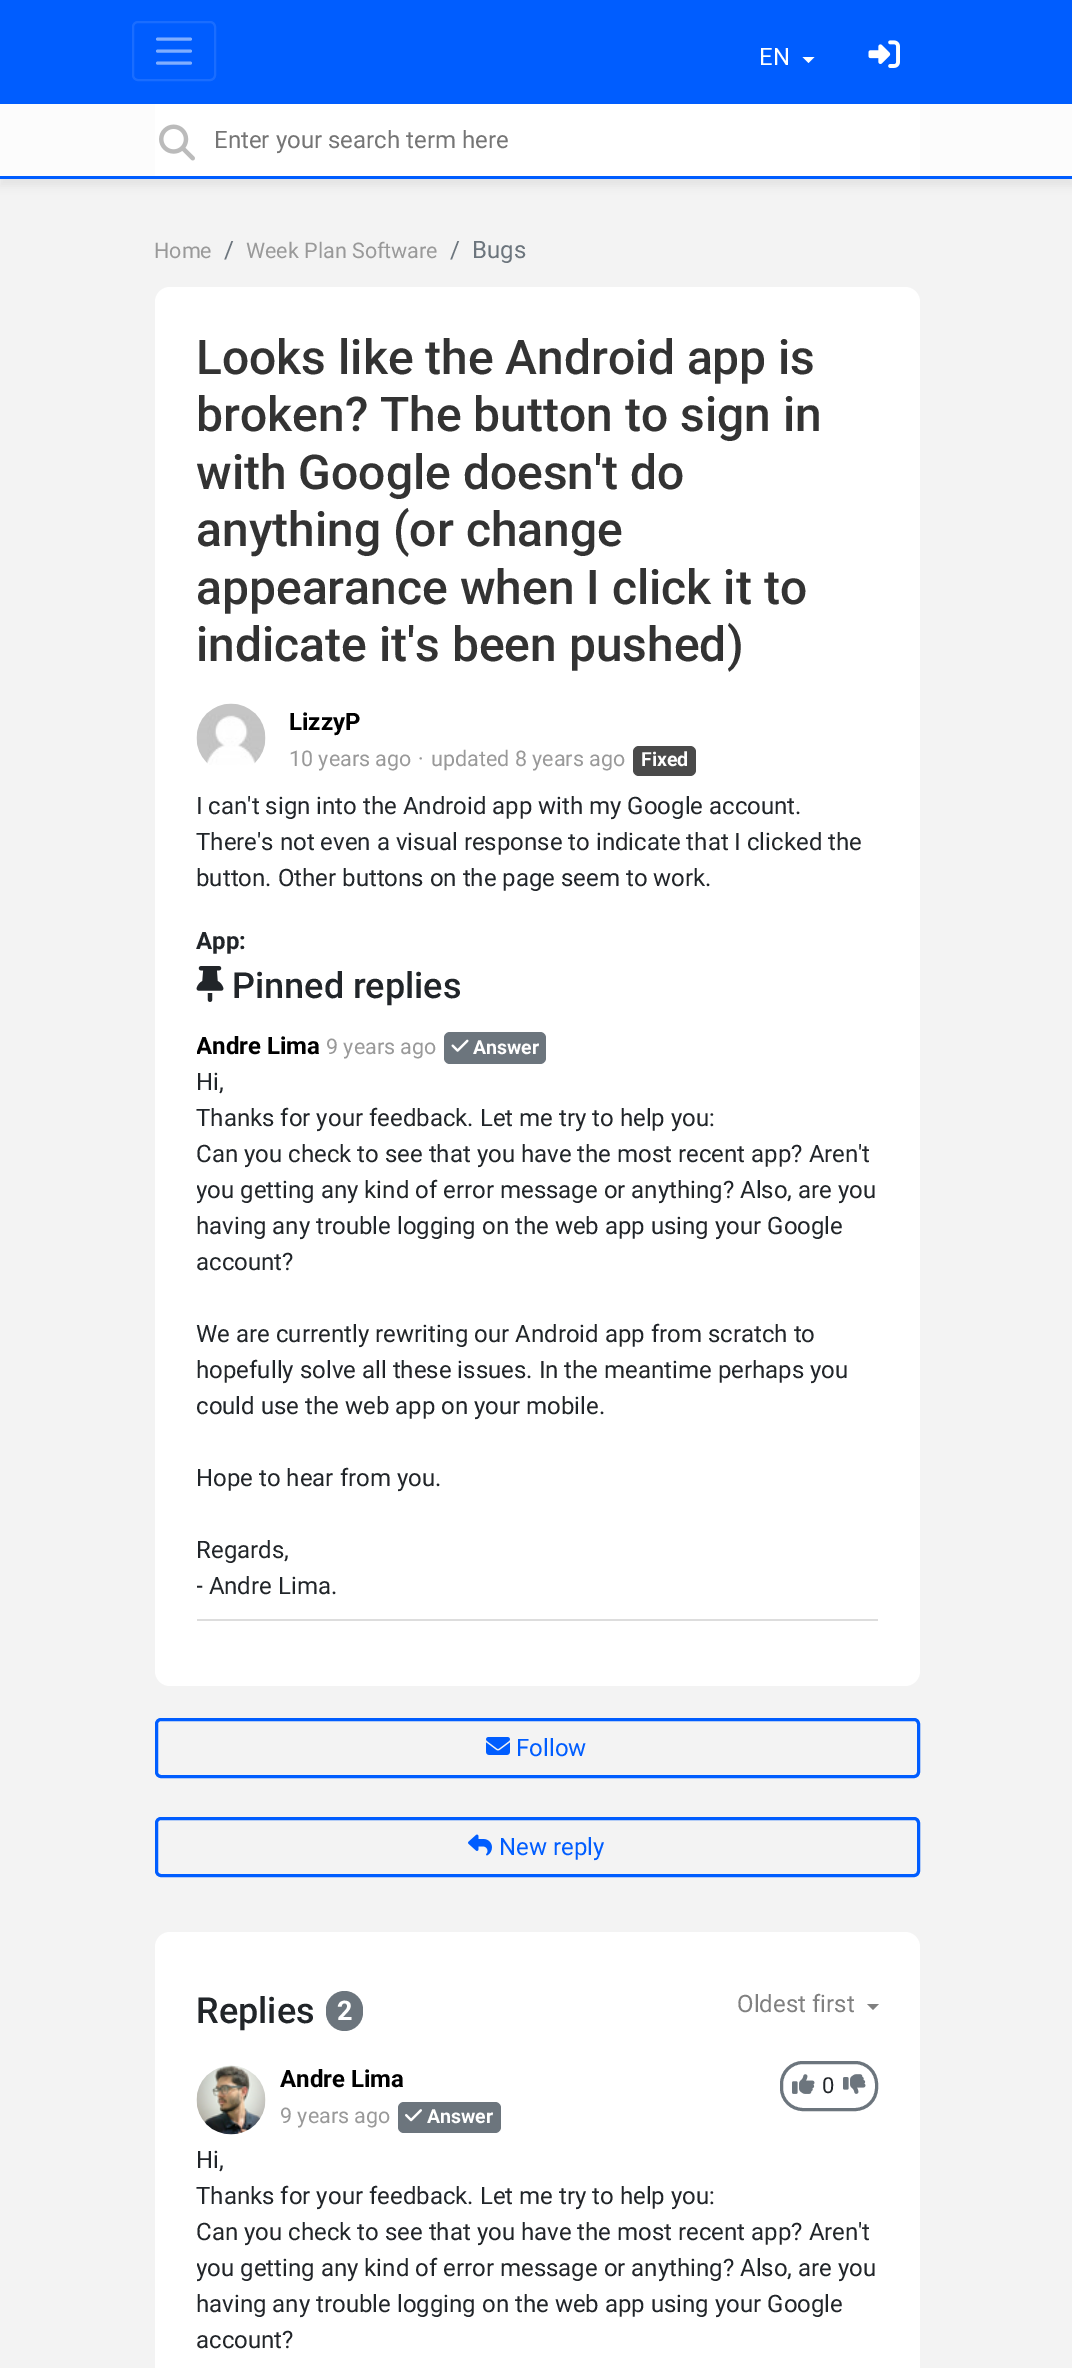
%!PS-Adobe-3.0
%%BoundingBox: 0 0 1072 2368
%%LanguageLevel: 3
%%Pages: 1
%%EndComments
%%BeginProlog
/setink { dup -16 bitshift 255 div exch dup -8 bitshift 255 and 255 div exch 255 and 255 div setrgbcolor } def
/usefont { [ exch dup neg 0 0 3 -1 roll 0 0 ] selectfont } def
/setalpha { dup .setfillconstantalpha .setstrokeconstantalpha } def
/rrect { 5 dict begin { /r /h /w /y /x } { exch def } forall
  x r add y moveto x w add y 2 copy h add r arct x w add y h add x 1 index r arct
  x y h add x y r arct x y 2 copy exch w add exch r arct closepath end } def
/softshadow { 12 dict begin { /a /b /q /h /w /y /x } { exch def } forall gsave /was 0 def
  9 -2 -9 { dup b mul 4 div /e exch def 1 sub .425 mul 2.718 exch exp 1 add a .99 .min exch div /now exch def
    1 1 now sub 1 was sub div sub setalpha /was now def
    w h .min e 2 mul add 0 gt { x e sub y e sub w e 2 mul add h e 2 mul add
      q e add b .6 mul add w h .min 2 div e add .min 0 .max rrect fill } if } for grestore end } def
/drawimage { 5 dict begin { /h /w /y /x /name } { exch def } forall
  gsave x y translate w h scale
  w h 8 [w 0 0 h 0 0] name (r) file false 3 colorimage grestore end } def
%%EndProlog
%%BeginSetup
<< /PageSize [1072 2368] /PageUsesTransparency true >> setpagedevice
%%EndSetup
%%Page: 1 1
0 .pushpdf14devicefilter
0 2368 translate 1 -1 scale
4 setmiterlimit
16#F3F3F3 setink
0 0 1072 2368 rectfill
16#005DFF setink
0 0 1072 104 rectfill
16#1A6DFF setink
2 setlinewidth
133 22 82 58 5 rrect stroke
16#80AEFF setink
3 setlinewidth
1 setlinecap
157.5 39 moveto 190.5 39 lineto 157.5 51 moveto 190.5 51 lineto 157.5 63 moveto 190.5 63 lineto stroke
/Roboto-Regular 24 usefont
16#FFFFFF setink
759 65 moveto (EN) show
802.5 57 moveto 814.5 57 lineto 808.5 63 lineto closepath fill
(img1.raw) 868 40 32 28 drawimage
16#646464 setink
0 111 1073 75 0 4 0.1 softshadow
[
    [0 104 1072 72 16#FCFCFC]
    [0 176 1072 3 16#005DFF]
    [155 104 765 72 16#FFFFFF]
] { aload pop setink rectfill } forall
(img2.raw) 159 124 36 37 drawimage
16#757575 setink
214 148 moveto (Enter your search term here) show
/Roboto-Regular 21.5 usefont
16#999999 setink
154 258 moveto (Home) show
/Roboto-Regular 24 usefont
16#6C757D setink
224 258 moveto (/) show
/Roboto-Regular 21.5 usefont
16#999999 setink
246 258 moveto (Week Plan Software) show
/Roboto-Regular 24 usefont
16#6C757D setink
450 258 moveto (/) show
472 258 moveto (Bugs) show
16#FFFFFF setink
155 287 765 1399 15 rrect fill
/Roboto-Medium 48 usefont
16#333333 setink
[
    [(Looks like the Android app is) 196 374]
    [(broken? The button to sign in) 196 431]
    [(with Google doesn't do) 196 489]
    [(anything \(or change) 196 546]
    [(appearance when I click it to) 196 604]
    [(indicate it's been pushed\)) 196 661]
] { aload pop moveto show } forall
(img3.raw) 196 703 70 62 drawimage
/Roboto-Bold 24 usefont
16#000000 setink
289 730 moveto (LizzyP) show
/Roboto-Regular 21.5 usefont
16#999999 setink
[
    [(10 years ago) 289 766]
    [(·) 418 766]
    [(updated 8 years ago) 431 766]
] { aload pop moveto show } forall
16#4A4A4A setink
633 746 63 30 6 rrect fill
/Roboto-Bold 19.5 usefont
16#FFFFFF setink
641 766 moveto (Fixed) show
/Roboto-Regular 24 usefont
16#212529 setink
[
    [(I can't sign into the Android app with my Google account.) 196 814]
    [(There's not even a visual response to indicate that I clicked the) 196 850]
    [(button. Other buttons on the page seem to work.) 196 886]
] { aload pop moveto show } forall
/Roboto-Bold 24 usefont
196 949 moveto (App:) show
(img4.raw) 196 966 28 36 drawimage
/Roboto-Medium 36 usefont
232 998 moveto (Pinned replies) show
16#DDDDDD setink
197 1619 681 2 rectfill
gsave
197 1013 681 606 rectclip
/Roboto-Bold 24 usefont
16#000000 setink
196 1054 moveto (Andre Lima) show
grestore
/Roboto-Regular 21.5 usefont
16#999999 setink
326 1054 moveto (9 years ago) show
16#6C757D setink
444 1032 102 32 6 rrect fill
(img5.raw) 451 1039 18 13 drawimage
/Roboto-Bold 19.5 usefont
16#FFFFFF setink
473 1054 moveto (Answer) show
/Roboto-Regular 24 usefont
16#212529 setink
[
    [(Hi,) 196 1090]
    [(Thanks for your feedback. Let me try to help you:) 196 1126]
    [(Can you check to see that you have the most recent app? Aren't) 196 1162]
] { aload pop moveto show } forall
gsave
197 1064 681 540 rectclip
196 1198 moveto (you getting any kind of error message or anything? Also, are you) show
grestore
[
    [(having any trouble logging on the web app using your Google) 196 1234]
    [(account?) 196 1270]
    [(We are currently rewriting our Android app from scratch to) 196 1342]
    [(hopefully solve all these issues. In the meantime perhaps you) 196 1378]
] { aload pop moveto show } forall
gsave
197 1064 681 540 rectclip
196 1414 moveto (could use the web app on your mobile.) show
grestore
196 1486 moveto (Hope to hear from you.) show
196 1558 moveto (Regards,) show
gsave
197 1064 681 540 rectclip
196 1594 moveto (- Andre Lima.) show
grestore
16#005DFF setink
0 setlinecap
156.5 1719.5 762 57 4.5 rrect stroke
(img6.raw) 486 1737 24 18 drawimage
516 1756 moveto (Follow) show
156.5 1818.5 762 57 4.5 rrect stroke
(img7.raw) 468 1834 24 22 drawimage
499 1855 moveto (New reply) show
16#FFFFFF setink
155 1932 765 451 15 rrect fill
/Roboto-Medium 36 usefont
16#212529 setink
196 2023 moveto (Replies) show
16#6C757D setink
326 1991 37 40 18.5 rrect fill
/Roboto-Bold 27 usefont
16#FFFFFF setink
337 2020 moveto (2) show
/Roboto-Regular 24 usefont
16#808080 setink
737 2012 moveto (Oldest first) show
867 2004 moveto 879 2004 lineto 873 2010 lineto closepath fill
(img8.raw) 196 2065 70 70 drawimage
/Roboto-Bold 24 usefont
16#000000 setink
280 2087 moveto (Andre Lima) show
/Roboto-Regular 21.5 usefont
16#999999 setink
280 2123 moveto (9 years ago) show
16#6C757D setink
398 2102 103 31 6 rrect fill
(img9.raw) 405 2109 17 13 drawimage
/Roboto-Bold 19.5 usefont
16#FFFFFF setink
427 2123 moveto (Answer) show
16#6C757D setink
781.5 2062.5 95 47 21.5 rrect stroke
(img10.raw) 792 2074 23 20 drawimage
/Roboto-Regular 22 usefont
16#212529 setink
822 2093 moveto (0) show
(img11.raw) 843 2074 23 20 drawimage
/Roboto-Regular 24 usefont
[
    [(Hi,) 196 2168]
    [(Thanks for your feedback. Let me try to help you:) 196 2204]
    [(Can you check to see that you have the most recent app? Aren't) 196 2240]
] { aload pop moveto show } forall
gsave
197 2142 681 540 rectclip
196 2276 moveto (you getting any kind of error message or anything? Also, are you) show
grestore
196 2312 moveto (having any trouble logging on the web app using your Google) show
196 2348 moveto (account?) show
.poppdf14devicefilter showpage
%%EOF
